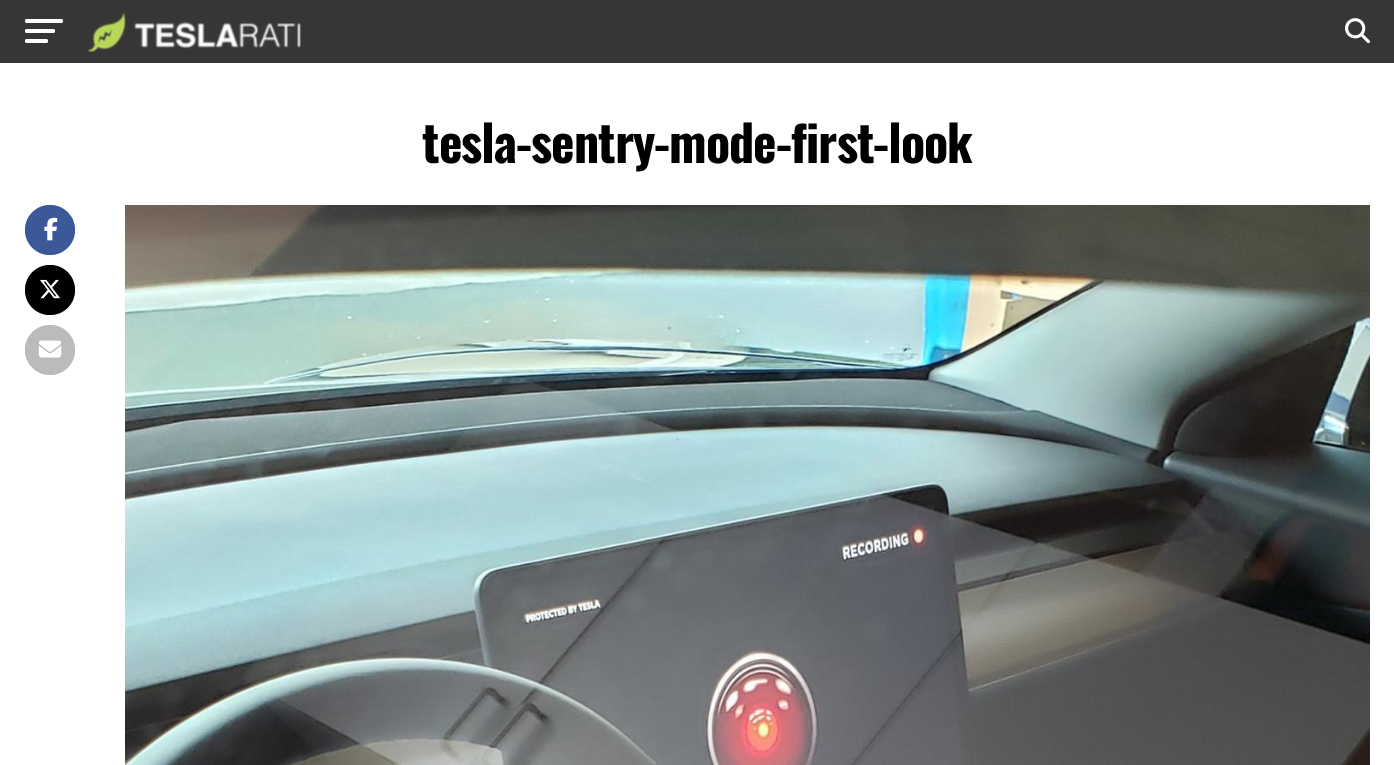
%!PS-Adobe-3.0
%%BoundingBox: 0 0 1394 765
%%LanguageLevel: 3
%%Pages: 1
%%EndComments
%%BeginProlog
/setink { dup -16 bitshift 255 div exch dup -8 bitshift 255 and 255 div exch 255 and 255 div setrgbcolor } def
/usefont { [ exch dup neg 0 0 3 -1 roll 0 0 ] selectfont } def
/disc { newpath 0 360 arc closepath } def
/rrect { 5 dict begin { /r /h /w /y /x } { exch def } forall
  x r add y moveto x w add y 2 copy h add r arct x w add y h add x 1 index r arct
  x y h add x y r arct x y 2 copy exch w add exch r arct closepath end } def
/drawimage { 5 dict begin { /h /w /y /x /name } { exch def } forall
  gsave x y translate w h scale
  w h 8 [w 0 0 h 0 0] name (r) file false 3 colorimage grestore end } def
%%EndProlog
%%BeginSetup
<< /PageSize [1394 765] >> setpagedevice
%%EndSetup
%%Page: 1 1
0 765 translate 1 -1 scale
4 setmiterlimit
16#FFFFFF setink
0 0 1394 765 rectfill
16#363636 setink
0 0 1394 63 rectfill
16#FFFFFF setink
25 19 38 4 2 rrect fill
25 29 30 4 2 rrect fill
25 39 23 4 2 rrect fill
(img1.raw) 87 12 214 40 drawimage
(img2.raw) 1345 18 25 26 drawimage
/Oswald-Bold 50 usefont
16#000000 setink
422 163 moveto -1 0 (tesla-sentry-mode-first-look) ashow
16#3B5998 setink
50 230 25 disc fill
(img3.raw) 44 217 14 24 drawimage
16#000000 setink
50 290 25 disc fill
(img4.raw) 40 279 20 20 drawimage
16#BBBBBB setink
50 350 25 disc fill
(img5.raw) 38 340 24 18 drawimage
(img6.raw) 125 205 1245 560 drawimage
showpage
%%EOF
